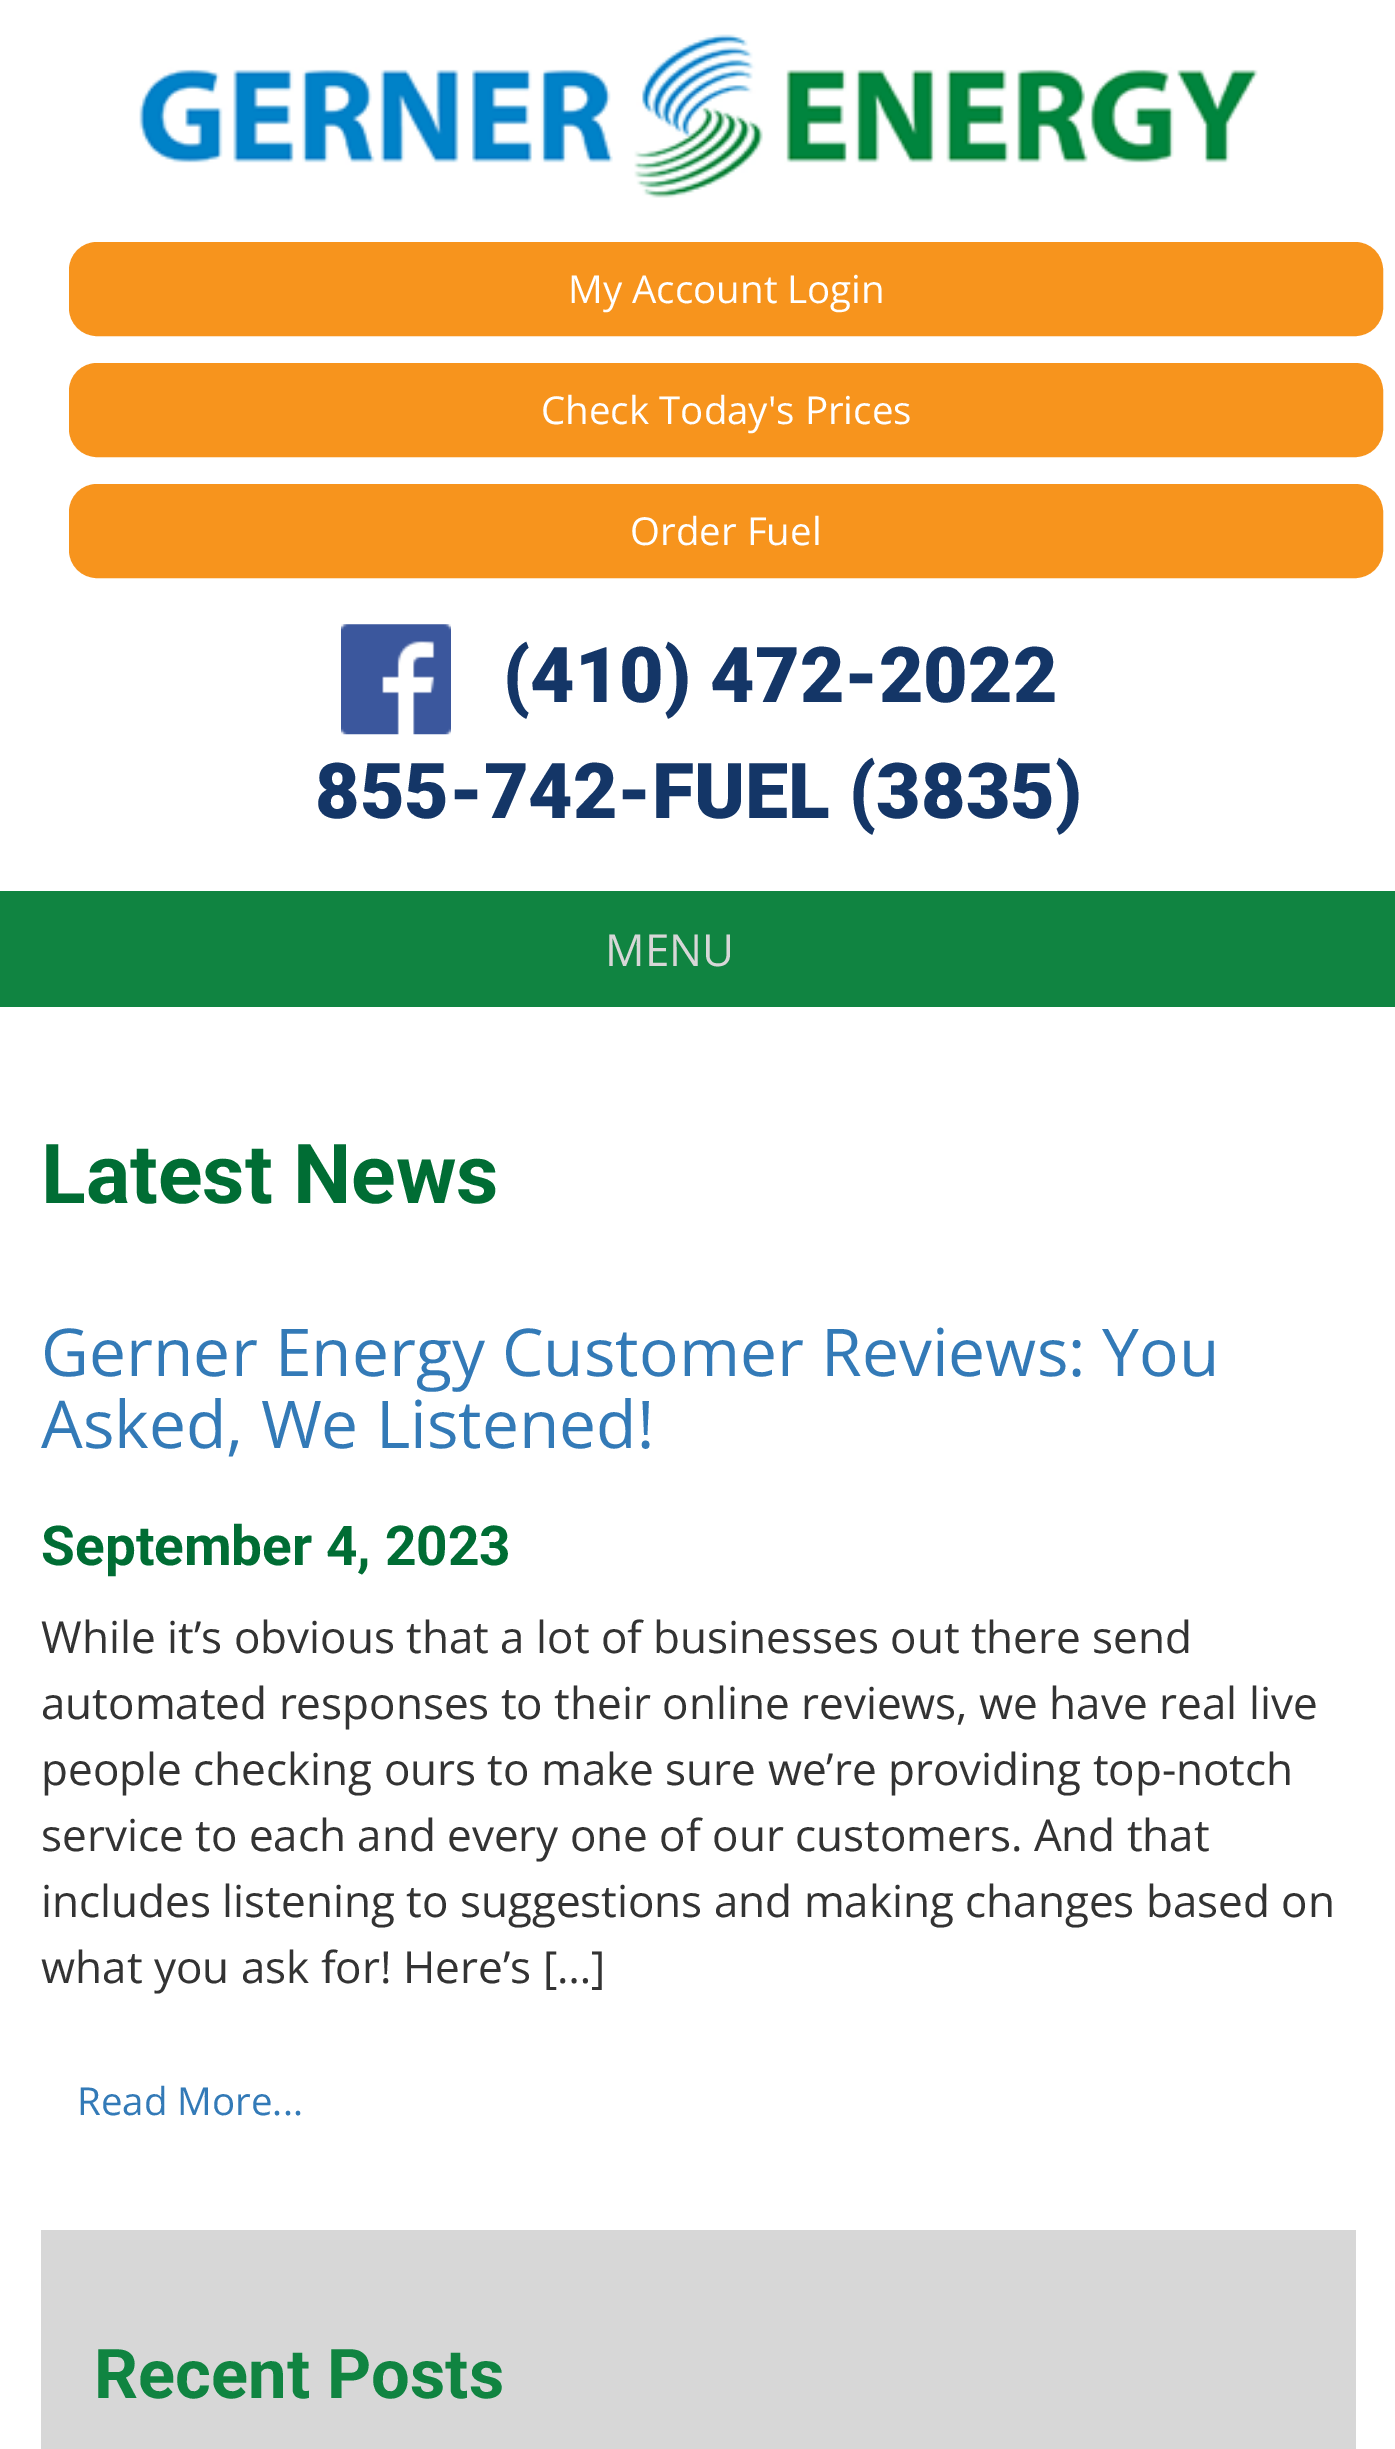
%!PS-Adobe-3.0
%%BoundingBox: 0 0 1395 2449
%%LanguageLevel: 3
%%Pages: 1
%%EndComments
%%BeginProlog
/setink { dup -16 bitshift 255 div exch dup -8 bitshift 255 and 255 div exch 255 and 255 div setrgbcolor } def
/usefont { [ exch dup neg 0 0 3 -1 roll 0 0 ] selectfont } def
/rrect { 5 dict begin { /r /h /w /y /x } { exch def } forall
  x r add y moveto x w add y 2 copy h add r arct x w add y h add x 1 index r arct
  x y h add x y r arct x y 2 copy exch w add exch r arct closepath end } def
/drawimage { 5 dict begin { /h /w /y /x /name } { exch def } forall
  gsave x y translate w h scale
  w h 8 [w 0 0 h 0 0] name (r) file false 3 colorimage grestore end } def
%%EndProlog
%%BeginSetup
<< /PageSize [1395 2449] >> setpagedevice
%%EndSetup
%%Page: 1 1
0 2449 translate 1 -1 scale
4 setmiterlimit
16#FFFFFF setink
0 0 1395 2449 rectfill
(img1.raw) 139 34 1119 164 drawimage
16#F7941D setink
70.5 243.5 1311 91 26.5 rrect gsave fill grestore
3 setlinewidth
stroke
/OpenSans-Regular 38.5 usefont
16#FFFFFF setink
568 303 moveto (My Account Login) show
16#F7941D setink
70.5 364.5 1311 91 26.5 rrect gsave fill grestore
stroke
16#FFFFFF setink
541 424 moveto (Check Today's Prices) show
16#F7941D setink
70.5 485.5 1311 91 26.5 rrect gsave fill grestore
stroke
16#FFFFFF setink
630 545 moveto (Order Fuel) show
(img2.raw) 341 624 110 111 drawimage
/Roboto-Black 77 usefont
16#143667 setink
503 702 moveto (\(410\) 472-2022) show
315 818 moveto (855-742-FUEL \(3835\)) show
16#108441 setink
0 891 1395 116 rectfill
/OpenSans-Regular 44 usefont
16#D7D7D7 setink
605 966 moveto (MENU) show
/Roboto-Bold 82.5 usefont
16#006D34 setink
41 1203 moveto (Latest News) show
/OpenSans-Regular 66 usefont
16#337AB7 setink
41 1376 moveto (Gerner Energy Customer Reviews: You) show
41 1448 moveto (Asked, We Listened!) show
/Roboto-Bold 55 usefont
16#006D34 setink
41 1565 moveto (September 4, 2023) show
/OpenSans-Regular 44 usefont
16#333333 setink
[
    [(While it’s obvious that a lot of businesses out there send) 41 1653]
    [(automated responses to their online reviews, we have real live) 41 1719]
    [(people checking ours to make sure we’re providing top-notch) 41 1785]
    [(service to each and every one of our customers. And that) 41 1851]
    [(includes listening to suggestions and making changes based on) 41 1917]
    [(what you ask for! Here’s […]) 41 1983]
] { aload pop moveto show } forall
/OpenSans-Regular 38.5 usefont
16#337AB7 setink
77 2115 moveto (Read More...) show
16#D7D7D7 setink
41 2230 1315 219 rectfill
/Roboto-Bold 68.75 usefont
16#108441 setink
94 2398 moveto (Recent Posts) show
showpage
%%EOF
